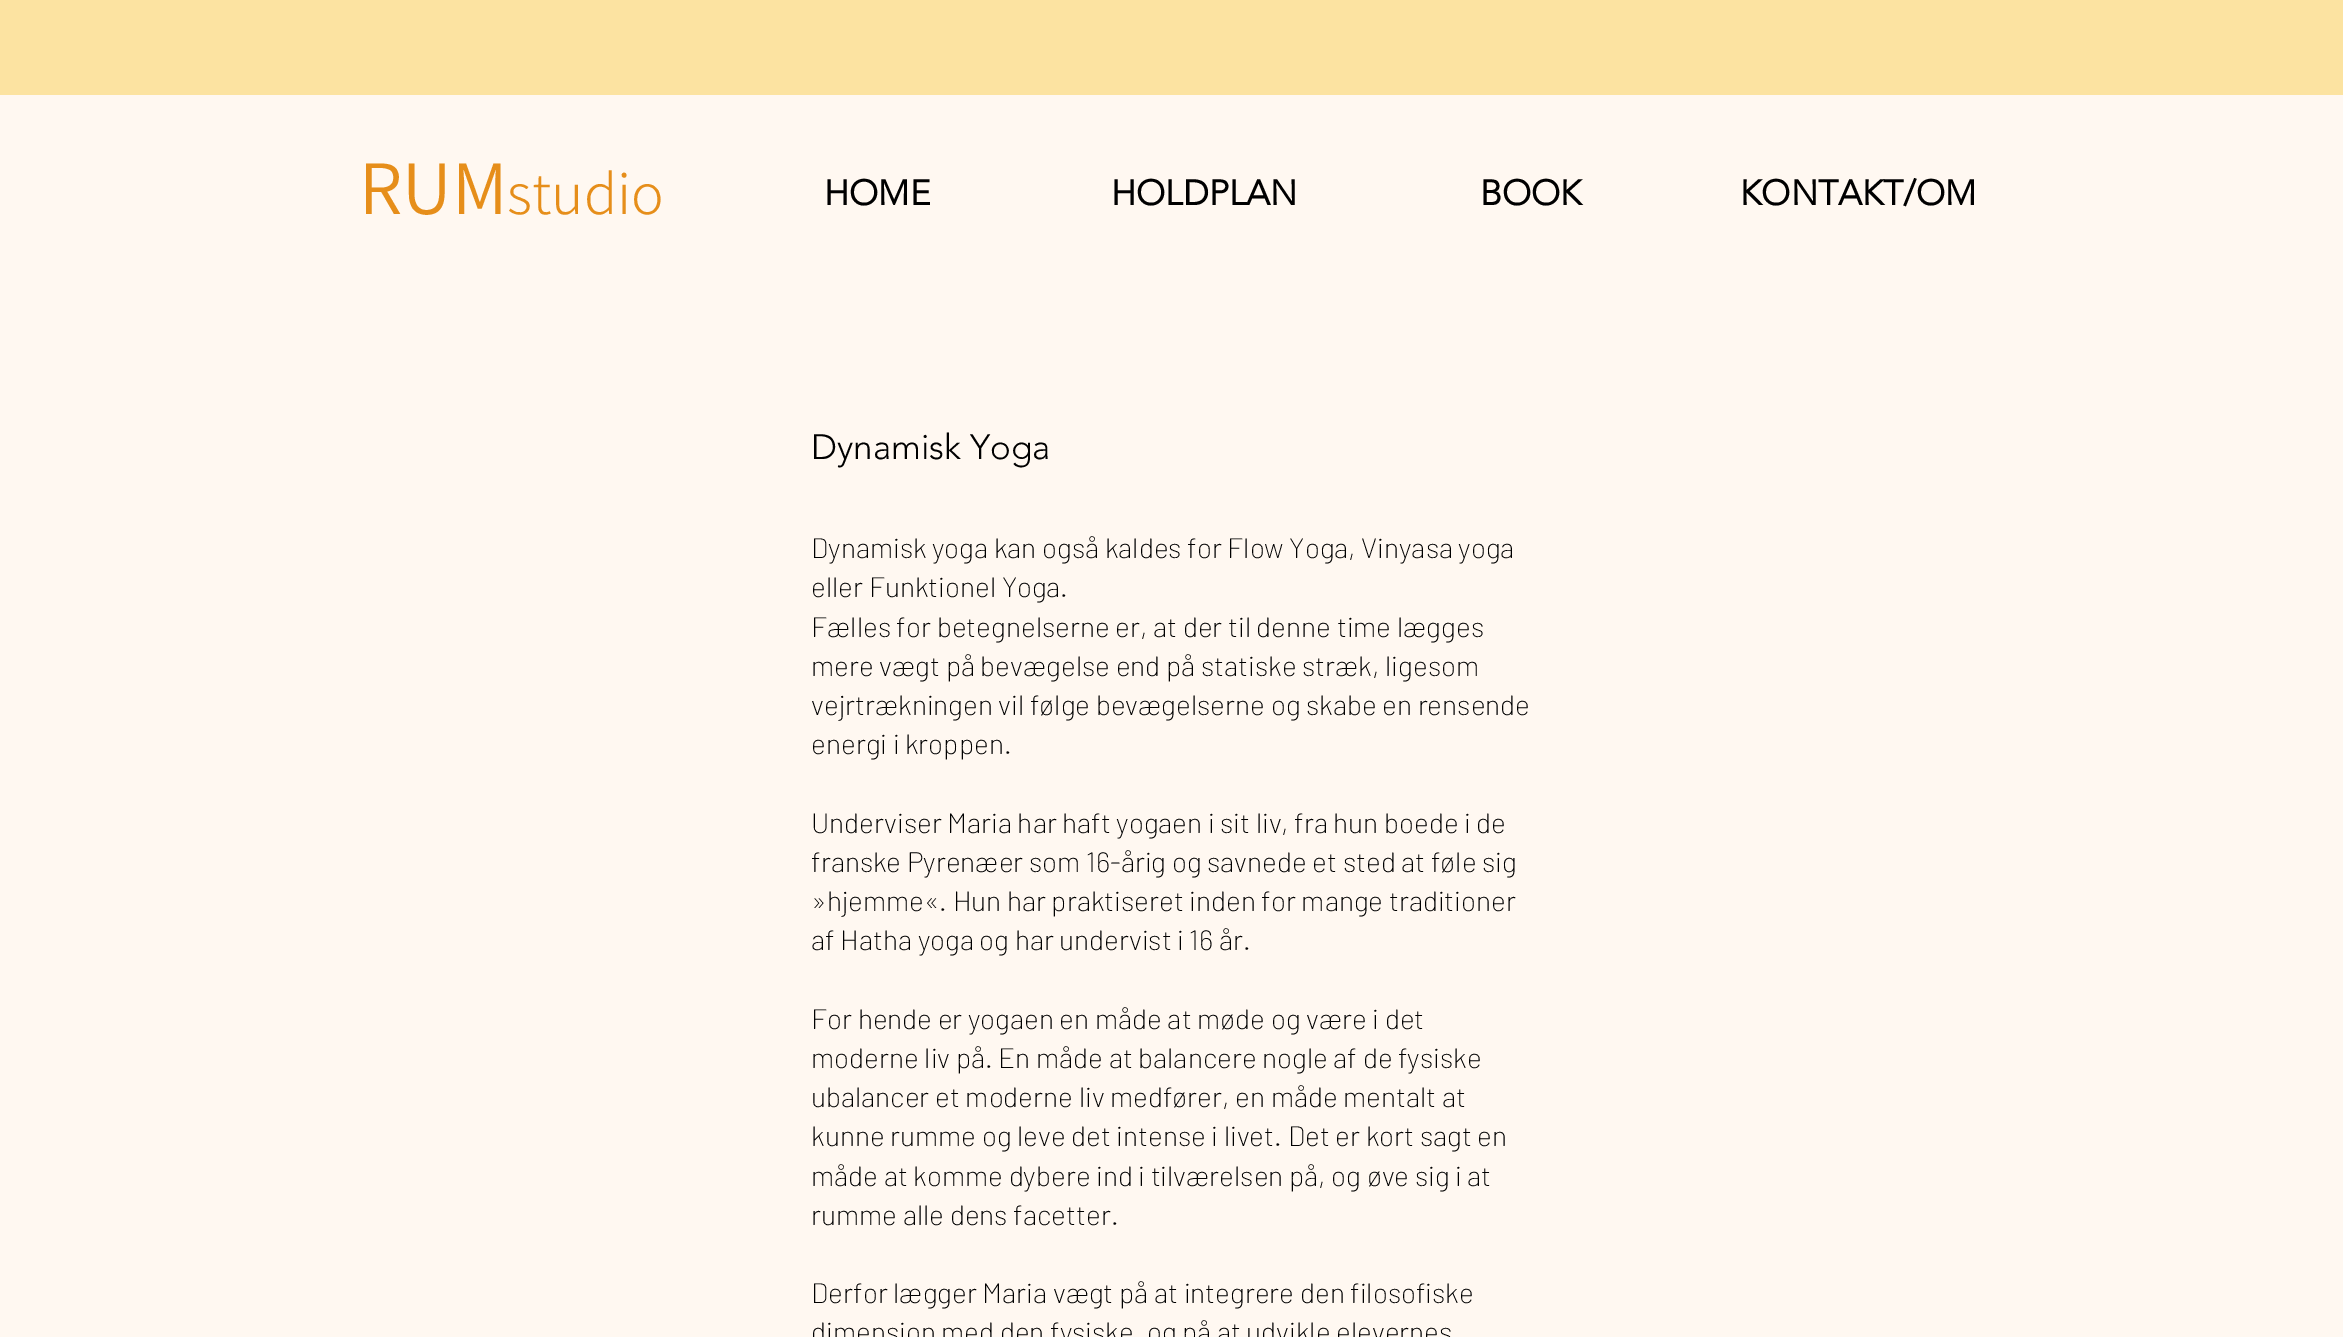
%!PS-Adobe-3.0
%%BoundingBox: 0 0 2343 1337
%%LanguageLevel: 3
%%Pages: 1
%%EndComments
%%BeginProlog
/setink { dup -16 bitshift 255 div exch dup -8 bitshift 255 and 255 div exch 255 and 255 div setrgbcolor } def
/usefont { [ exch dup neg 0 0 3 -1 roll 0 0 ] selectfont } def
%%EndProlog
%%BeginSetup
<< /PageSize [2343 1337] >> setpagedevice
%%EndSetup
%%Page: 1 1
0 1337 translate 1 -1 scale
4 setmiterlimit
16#FFF8F1 setink
0 0 2343 1337 rectfill
16#FCE3A1 setink
0 0 2343 95 rectfill
/Assistant-Regular 77 usefont
16#E68E1A setink
359 214 moveto (RUM) show
/Assistant-Light 61 usefont
507 214 moveto (studio) show
/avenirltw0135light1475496-Bold 35 usefont
16#000000 setink
[
    [(HOME) 824 205]
    [(HOLDPLAN) 1111 205]
    [(BOOK) 1480 205]
    [(KONTAKT/OM) 1740 205]
] { aload pop moveto show } forall
/avenirltw0135light1475496-Light 35 usefont
811 459 moveto (Dynamisk Yoga) show
/Barlow-ExtraLight 28 usefont
[
    [(Dynamisk yoga kan også kaldes for Flow Yoga, Vinyasa yoga) 811 558]
    [(eller Funktionel Yoga.) 811 597]
    [(Fælles for betegnelserne er, at der til denne time lægges) 811 637]
    [(mere vægt på bevægelse end på statiske stræk, ligesom) 811 676]
    [(vejrtrækningen vil følge bevægelserne og skabe en rensende) 811 715]
    [(energi i kroppen.) 811 754]
    [(Underviser Maria har haft yogaen i sit liv, fra hun boede i de) 811 833]
    [(franske Pyrenæer som 16-årig og savnede et sted at føle sig) 811 872]
    [(»hjemme«. Hun har praktiseret inden for mange traditioner) 811 911]
    [(af Hatha yoga og har undervist i 16 år.) 811 950]
    [(For hende er yogaen en måde at møde og være i det) 811 1029]
    [(moderne liv på. En måde at balancere nogle af de fysiske) 811 1068]
    [(ubalancer et moderne liv medfører, en måde mentalt at) 811 1107]
    [(kunne rumme og leve det intense i livet. Det er kort sagt en) 811 1146]
    [(måde at komme dybere ind i tilværelsen på, og øve sig i at) 811 1186]
    [(rumme alle dens facetter.) 811 1225]
    [(Derfor lægger Maria vægt på at integrere den filosofiske) 811 1303]
    [(dimension med den fysiske, og på at udvikle elevernes) 811 1342]
] { aload pop moveto show } forall
showpage
%%EOF
